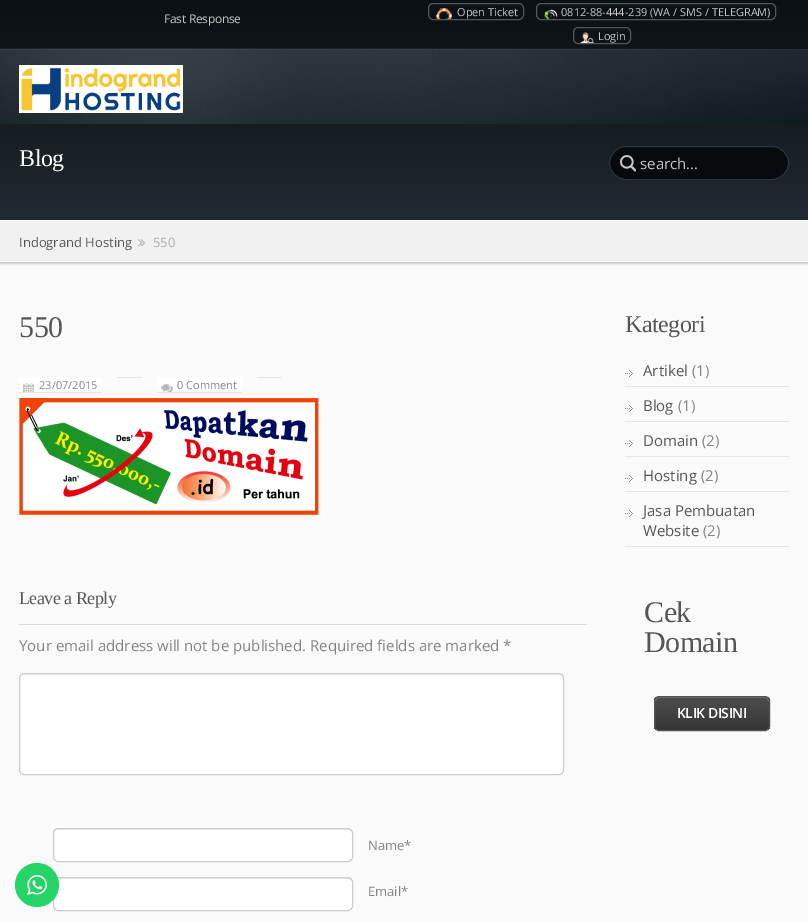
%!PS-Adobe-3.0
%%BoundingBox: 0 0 808 922
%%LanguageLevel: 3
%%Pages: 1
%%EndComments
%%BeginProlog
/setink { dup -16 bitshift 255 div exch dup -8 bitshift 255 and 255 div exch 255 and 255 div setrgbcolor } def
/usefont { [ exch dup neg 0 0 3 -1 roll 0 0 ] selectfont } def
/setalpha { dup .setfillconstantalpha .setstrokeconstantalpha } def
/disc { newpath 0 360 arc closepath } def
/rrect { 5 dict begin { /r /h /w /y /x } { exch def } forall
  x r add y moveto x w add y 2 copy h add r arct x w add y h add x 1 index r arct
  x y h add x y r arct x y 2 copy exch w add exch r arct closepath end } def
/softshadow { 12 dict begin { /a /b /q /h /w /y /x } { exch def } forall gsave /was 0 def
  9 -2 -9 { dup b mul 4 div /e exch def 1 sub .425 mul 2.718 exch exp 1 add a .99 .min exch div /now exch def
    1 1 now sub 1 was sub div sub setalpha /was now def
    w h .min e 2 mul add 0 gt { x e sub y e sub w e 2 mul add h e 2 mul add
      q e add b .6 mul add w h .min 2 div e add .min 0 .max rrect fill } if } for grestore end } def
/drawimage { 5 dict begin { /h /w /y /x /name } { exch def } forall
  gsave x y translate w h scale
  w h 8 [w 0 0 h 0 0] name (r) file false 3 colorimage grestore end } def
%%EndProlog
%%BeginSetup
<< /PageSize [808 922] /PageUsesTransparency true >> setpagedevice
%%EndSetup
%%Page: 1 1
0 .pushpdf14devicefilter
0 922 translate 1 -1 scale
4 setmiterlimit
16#FAFAFA setink
0 0 808 922 rectfill
(img1.raw) 0 0 808 220 drawimage
/OpenSans-Regular 12 usefont
16#C6C6C6 setink
164 23 moveto -0.25 0 (Fast Response) ashow
(img2.raw) 436 8 16 11 drawimage
16#555555 setink
428.5 3.5 95 16 4.5 rrect stroke
/OpenSans-Regular 11 usefont
16#C6C6C6 setink
457 16 moveto (Open Ticket) show
(img3.raw) 544 8 14 11 drawimage
16#555555 setink
536.5 3.5 239 16 4.5 rrect stroke
16#C6C6C6 setink
561 16 moveto (0812-88-444-239 \(WA / SMS / TELEGRAM\)) show
(img4.raw) 580 32 15 11 drawimage
16#555555 setink
573.5 27.5 57 16 4.5 rrect stroke
16#C6C6C6 setink
598 40 moveto (Login) show
(img5.raw) 0 48 808 76 drawimage
(img6.raw) 19 65 164 48 drawimage
/LiberationSerif-Regular 24 usefont
16#FFFFFF setink
19 166 moveto -0.5 0 (Blog) ashow
16#080A0D setink
609 146 180 34 17 rrect fill
(img7.raw) 620 155 16 17 drawimage
16#293742 setink
609.5 146.5 179 33 16.5 rrect stroke
/OpenSans-Regular 15 usefont
16#C6C6C6 setink
640 169 moveto (search...) show
16#CACACA setink
0 222 808 42 0 1 1 softshadow
[
    [0 221 808 40 16#F1F1F1]
    [0 220 808 1 16#FFFFFF]
    [0 261 808 1 16#FFFFFF]
] { aload pop setink rectfill } forall
/OpenSans-Regular 13 usefont
16#555555 setink
19 247 moveto (Indogrand Hosting) show
(img8.raw) 138 239 7 8 drawimage
16#ADADAD setink
153 247 moveto (550) show
/LiberationSerif-Regular 30 usefont
16#555555 setink
19 337 moveto -0.5 0 (550) ashow
[
    [117 377 25 1 16#E6E6E6]
    [257 377 25 1 16#E6E6E6]
    [19 377 83 15 16#FFFFFF]
] { aload pop setink rectfill } forall
(img9.raw) 23 383 11 9 drawimage
16#E6E6E6 setink
19 392 83 1 rectfill
/OpenSans-Regular 11 usefont
16#848484 setink
39 389 moveto (23/07/2015) show
16#FFFFFF setink
157 377 85 15 rectfill
(img10.raw) 161 384 12 8 drawimage
16#E6E6E6 setink
157 392 85 1 rectfill
16#848484 setink
177 389 moveto (0 Comment) show
(img11.raw) 19 398 300 117 drawimage
16#DCDCDC setink
19 624 568 1 rectfill
/LiberationSerif-Regular 18 usefont
16#555555 setink
19 604 moveto -0.5 0 (Leave a Reply) ashow
/OpenSans-Regular 15 usefont
16#848484 setink
19 651 moveto (Your email address will not be published. Required fields are marked *) show
16#FFFFFF setink
19 673 545 102 5 rrect fill
16#ECECEC setink
24 675 moveto 559 675 lineto 561 675 563 677 563 679 curveto 563 678 lineto 563 676 561 674 559 674 curveto 24 674 lineto 22 674 20 676 20 678 curveto 20 679 lineto 20 677 22 675 24 675 curveto closepath fill
16#CCCCCC setink
19.5 673.5 544 101 4.5 rrect stroke
16#FFFFFF setink
53 828 300 34 5 rrect fill
16#ECECEC setink
58 830 moveto 348 830 lineto 350 830 352 832 352 834 curveto 352 831 351 829 348 829 curveto 58 829 lineto 55 829 54 831 54 834 curveto 54 832 56 830 58 830 curveto closepath fill
16#CCCCCC setink
53.5 828.5 299 33 4.5 rrect stroke
/OpenSans-Regular 13 usefont
16#848484 setink
368 850 moveto (Name*) show
16#FFFFFF setink
53 877 300 34 5 rrect fill
16#ECECEC setink
58 879 moveto 348 879 lineto 350 879 352 881 352 883 curveto 352 880 351 878 348 878 curveto 58 878 lineto 55 878 54 880 54 883 curveto 54 881 56 879 58 879 curveto closepath fill
16#CCCCCC setink
53.5 877.5 299 33 4.5 rrect stroke
16#848484 setink
368 896 moveto (Email*) show
/LiberationSerif-Regular 24 usefont
16#555555 setink
625 332 moveto -0.5 0 (Kategori) ashow
(img12.raw) 625 370 8 7 drawimage
16#E6E6E6 setink
625 386 164 1 rectfill
/OpenSans-Regular 15 usefont
16#555555 setink
643 376 moveto (Artikel) show
16#848484 setink
692 376 moveto (\(1\)) show
(img12.raw) 625 405 8 7 drawimage
16#E6E6E6 setink
625 421 164 1 rectfill
16#555555 setink
643 411 moveto (Blog) show
16#848484 setink
678 411 moveto (\(1\)) show
(img12.raw) 625 440 8 7 drawimage
16#E6E6E6 setink
625 456 164 1 rectfill
16#555555 setink
643 446 moveto (Domain) show
16#848484 setink
702 446 moveto (\(2\)) show
(img12.raw) 625 475 8 7 drawimage
16#E6E6E6 setink
625 491 164 1 rectfill
16#555555 setink
643 481 moveto (Hosting) show
16#848484 setink
701 481 moveto (\(2\)) show
(img12.raw) 625 510 8 7 drawimage
16#E6E6E6 setink
625 546 164 1 rectfill
16#555555 setink
643 516 moveto (Jasa Pembuatan) show
643 536 moveto (Website) show
16#848484 setink
703 536 moveto (\(2\)) show
/LiberationSerif-Regular 30 usefont
16#555555 setink
644 622 moveto -0.5 0 (Cek) ashow
644 652 moveto -0.5 0 (Domain) ashow
gsave
654 696 116 35 5 rrect clip newpath
gsave 654 697 moveto 770 697 lineto 770 730 lineto 654 730 lineto closepath clip newpath
<< /ShadingType 2 /ColorSpace /DeviceRGB /Coords [712 697 712 730] /Extend [true true] /Function << /FunctionType 2 /Domain [0 1] /C0 [0.306 0.306 0.306] /C1 [0.208 0.208 0.208] /N 1 >> >> shfill grestore
grestore
0.2 setalpha
16#FFFFFF setink
659 698 moveto 765 698 lineto 767 698 769 700 769 702 curveto 769 692 751 697 747 697 curveto 677 697 lineto 673 697 655 692 655 702 curveto 655 700 657 698 659 698 curveto closepath fill
1 setalpha
16#555555 setink
654.5 696.5 115 34 4.5 rrect stroke
/OpenSans-SemiBold 14 usefont
16#FFFFFF setink
677 718 moveto -0.5 0 (KLIK DISINI) ashow
16#25D366 setink
37 885 22 disc fill
(img13.raw) 27 875 20 20 drawimage
.poppdf14devicefilter showpage
%%EOF
